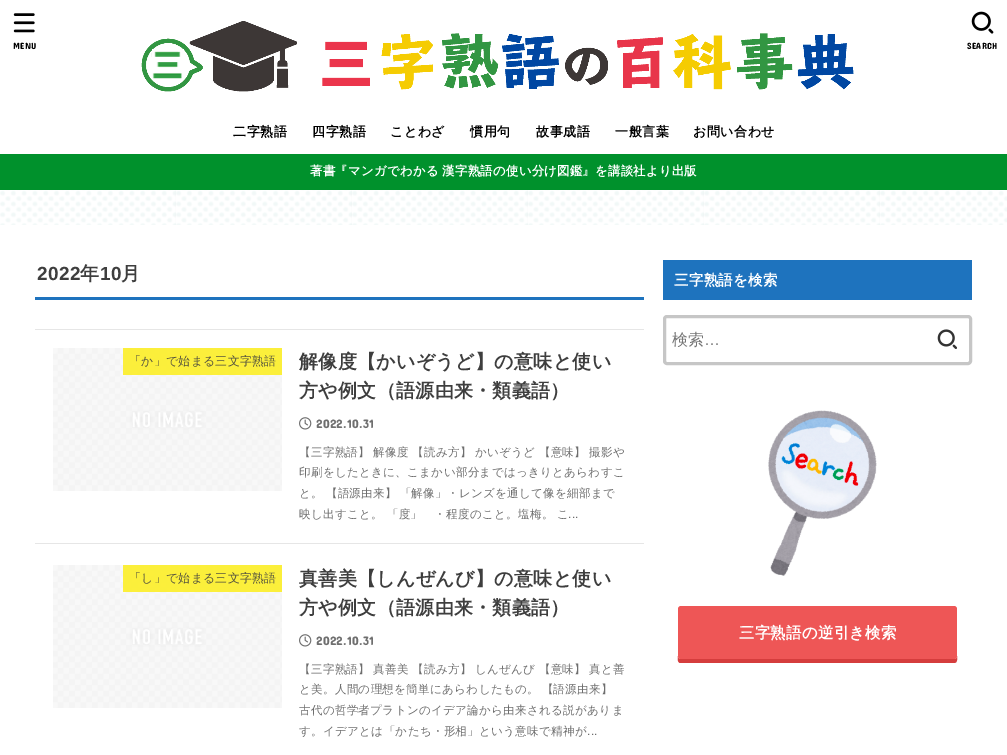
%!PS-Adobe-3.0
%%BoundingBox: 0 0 1007 755
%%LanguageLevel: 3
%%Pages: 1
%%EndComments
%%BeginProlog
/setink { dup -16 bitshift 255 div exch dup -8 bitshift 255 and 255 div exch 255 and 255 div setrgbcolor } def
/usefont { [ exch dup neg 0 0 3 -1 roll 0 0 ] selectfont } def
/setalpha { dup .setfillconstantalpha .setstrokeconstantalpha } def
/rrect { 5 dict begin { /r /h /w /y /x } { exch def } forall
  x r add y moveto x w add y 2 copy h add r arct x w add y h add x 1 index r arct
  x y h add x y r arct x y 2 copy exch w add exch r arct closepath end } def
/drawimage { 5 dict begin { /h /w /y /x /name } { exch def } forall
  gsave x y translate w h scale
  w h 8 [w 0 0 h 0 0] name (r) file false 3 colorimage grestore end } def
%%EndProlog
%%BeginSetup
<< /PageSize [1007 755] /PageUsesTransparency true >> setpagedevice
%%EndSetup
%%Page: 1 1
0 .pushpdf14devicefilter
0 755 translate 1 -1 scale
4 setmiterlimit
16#FFFFFF setink
0 0 1007 755 rectfill
(img1.raw) 0 190 1007 35 drawimage
(img2.raw) 13 13 22 20 drawimage
/ConcertOne-Regular 9 usefont
16#000000 setink
13 49 moveto 0.3 0 (MENU) ashow
(img3.raw) 141 21 713 71 drawimage
(img4.raw) 971 11 23 23 drawimage
967 49 moveto 0.3 0 (SEARCH) ashow
/WenQuanYiZenHei-Bold 13 usefont
233 136 moveto 0.5 0 (二字熟語) ashow
312 136 moveto 0.5 0 (四字熟語) ashow
390 136 moveto 0.5 0 (ことわざ) ashow
470 136 moveto 0.5 0 (慣用句) ashow
536 136 moveto 0.5 0 (故事成語) ashow
615 136 moveto 0.5 0 (一般言葉) ashow
693 136 moveto 0.5 0 (お問い合わせ) ashow
16#00912C setink
0 154 1007 36 rectfill
/WenQuanYiZenHei-Bold 12.35 usefont
16#FFFFFF setink
310 175 moveto 0.3 0 (著書『マンガでわかる 漢字熟語の使い分け図鑑』を講談社より出版) ashow
16#1E73BE setink
35 297 609 3 rectfill
/LiberationSans-Bold 19 usefont
16#3E3E3E setink
37 280 moveto 0.3 0 (2022) ashow
/WenQuanYiZenHei-Bold 19 usefont
80 280 moveto 0.3 0 (年) ashow
/LiberationSans-Bold 19 usefont
100 280 moveto 0.3 0 (10) ashow
/WenQuanYiZenHei-Bold 19 usefont
121 280 moveto 0.3 0 (月) ashow
16#E6E6E6 setink
35 329 609 1 rectfill
35 543 609 1 rectfill
(img5.raw) 53 348 229 143 drawimage
0.88 setalpha
16#FCEE21 setink
123 348 159 27 rectfill
/WenQuanYiZenHei-Medium 11.9 usefont
1 setalpha
16#55533E setink
129 365 moveto 0.3 0 (「か」で始まる三文字熟語) ashow
/WenQuanYiZenHei-Bold 19 usefont
16#3E3E3E setink
299 368 moveto 0.3 0 (解像度【かいぞうど】の意味と使い) ashow
299 397 moveto 0.3 0 (方や例文（語源由来・類義語）) ashow
(img6.raw) 299 417 13 13 drawimage
/ConcertOne-Regular 12.35 usefont
16#6E6E6E setink
316 428 moveto 0.3 0 (2022.10.31) ashow
/WenQuanYiZenHei-Medium 11.55 usefont
299 456 moveto -0.5 0 32 0.3 0 (【三字熟語】 解像度 【読み方】 かいぞうど 【意味】 撮影や) awidthshow
299 476 moveto 0.3 0 (印刷をしたときに、こまかい部分まではっきりとあらわすこ) ashow
299 497 moveto -1 0 32 0.3 0 (と。 【語源由来】 「解像」・レンズを通して像を細部まで) awidthshow
299 518 moveto 0.3 0 (映し出すこと。 「度」　・程度のこと。塩梅。 こ) ashow
/LiberationSans-Regular 11.55 usefont
568 518 moveto 0.3 0 (...) ashow
(img5.raw) 53 565 229 143 drawimage
0.88 setalpha
16#FCEE21 setink
123 565 159 27 rectfill
/WenQuanYiZenHei-Medium 11.9 usefont
1 setalpha
16#55533E setink
129 582 moveto 0.3 0 (「し」で始まる三文字熟語) ashow
/WenQuanYiZenHei-Bold 19 usefont
16#3E3E3E setink
299 585 moveto 0.3 0 (真善美【しんぜんび】の意味と使い) ashow
299 614 moveto 0.3 0 (方や例文（語源由来・類義語）) ashow
(img6.raw) 299 634 13 13 drawimage
/ConcertOne-Regular 12.35 usefont
16#6E6E6E setink
316 645 moveto 0.3 0 (2022.10.31) ashow
/WenQuanYiZenHei-Medium 11.55 usefont
299 673 moveto -0.5 0 32 0.3 0 (【三字熟語】 真善美 【読み方】 しんぜんび 【意味】 真と善) awidthshow
299 693 moveto -1 0 32 0.3 0 (と美。人間の理想を簡単にあらわしたもの。 【語源由来】) awidthshow
299 714 moveto 0.3 0 (古代の哲学者プラトンのイデア論から由来される説がありま) ashow
299 735 moveto 0.3 0 (す。イデアとは「かたち・形相」という意味で精神が) ashow
/LiberationSans-Regular 11.55 usefont
587 735 moveto 0.3 0 (...) ashow
16#1E73BE setink
663 260 309 40 rectfill
/WenQuanYiZenHei-Bold 14.5 usefont
16#FFFFFF setink
674 285 moveto 0.3 0 (三字熟語を検索) ashow
16#C6C6C6 setink
3 setlinewidth
664.5 316.5 306 47 2.5 rrect stroke
/WenQuanYiZenHei-Medium 16 usefont
16#757575 setink
672 345 moveto (検索) show
/LiberationSans-Regular 16 usefont
704 345 moveto (…) show
(img7.raw) 937 329 20 20 drawimage
(img8.raw) 768 410 109 166 drawimage
16#D53D3D setink
678 656 moveto 678 658 677 662 680 663 curveto 954 663 lineto 958 663 957 658 957 656 curveto 957 658 956 659 954 659 curveto 681 659 lineto 679 659 678 658 678 656 curveto closepath fill
16#EE5656 setink
678 606 279 53 3 rrect fill
/WenQuanYiZenHei-Bold 15.4 usefont
16#FFFFFF setink
739 638 moveto 0.3 0 (三字熟語の逆引き検索) ashow
.poppdf14devicefilter showpage
%%EOF
